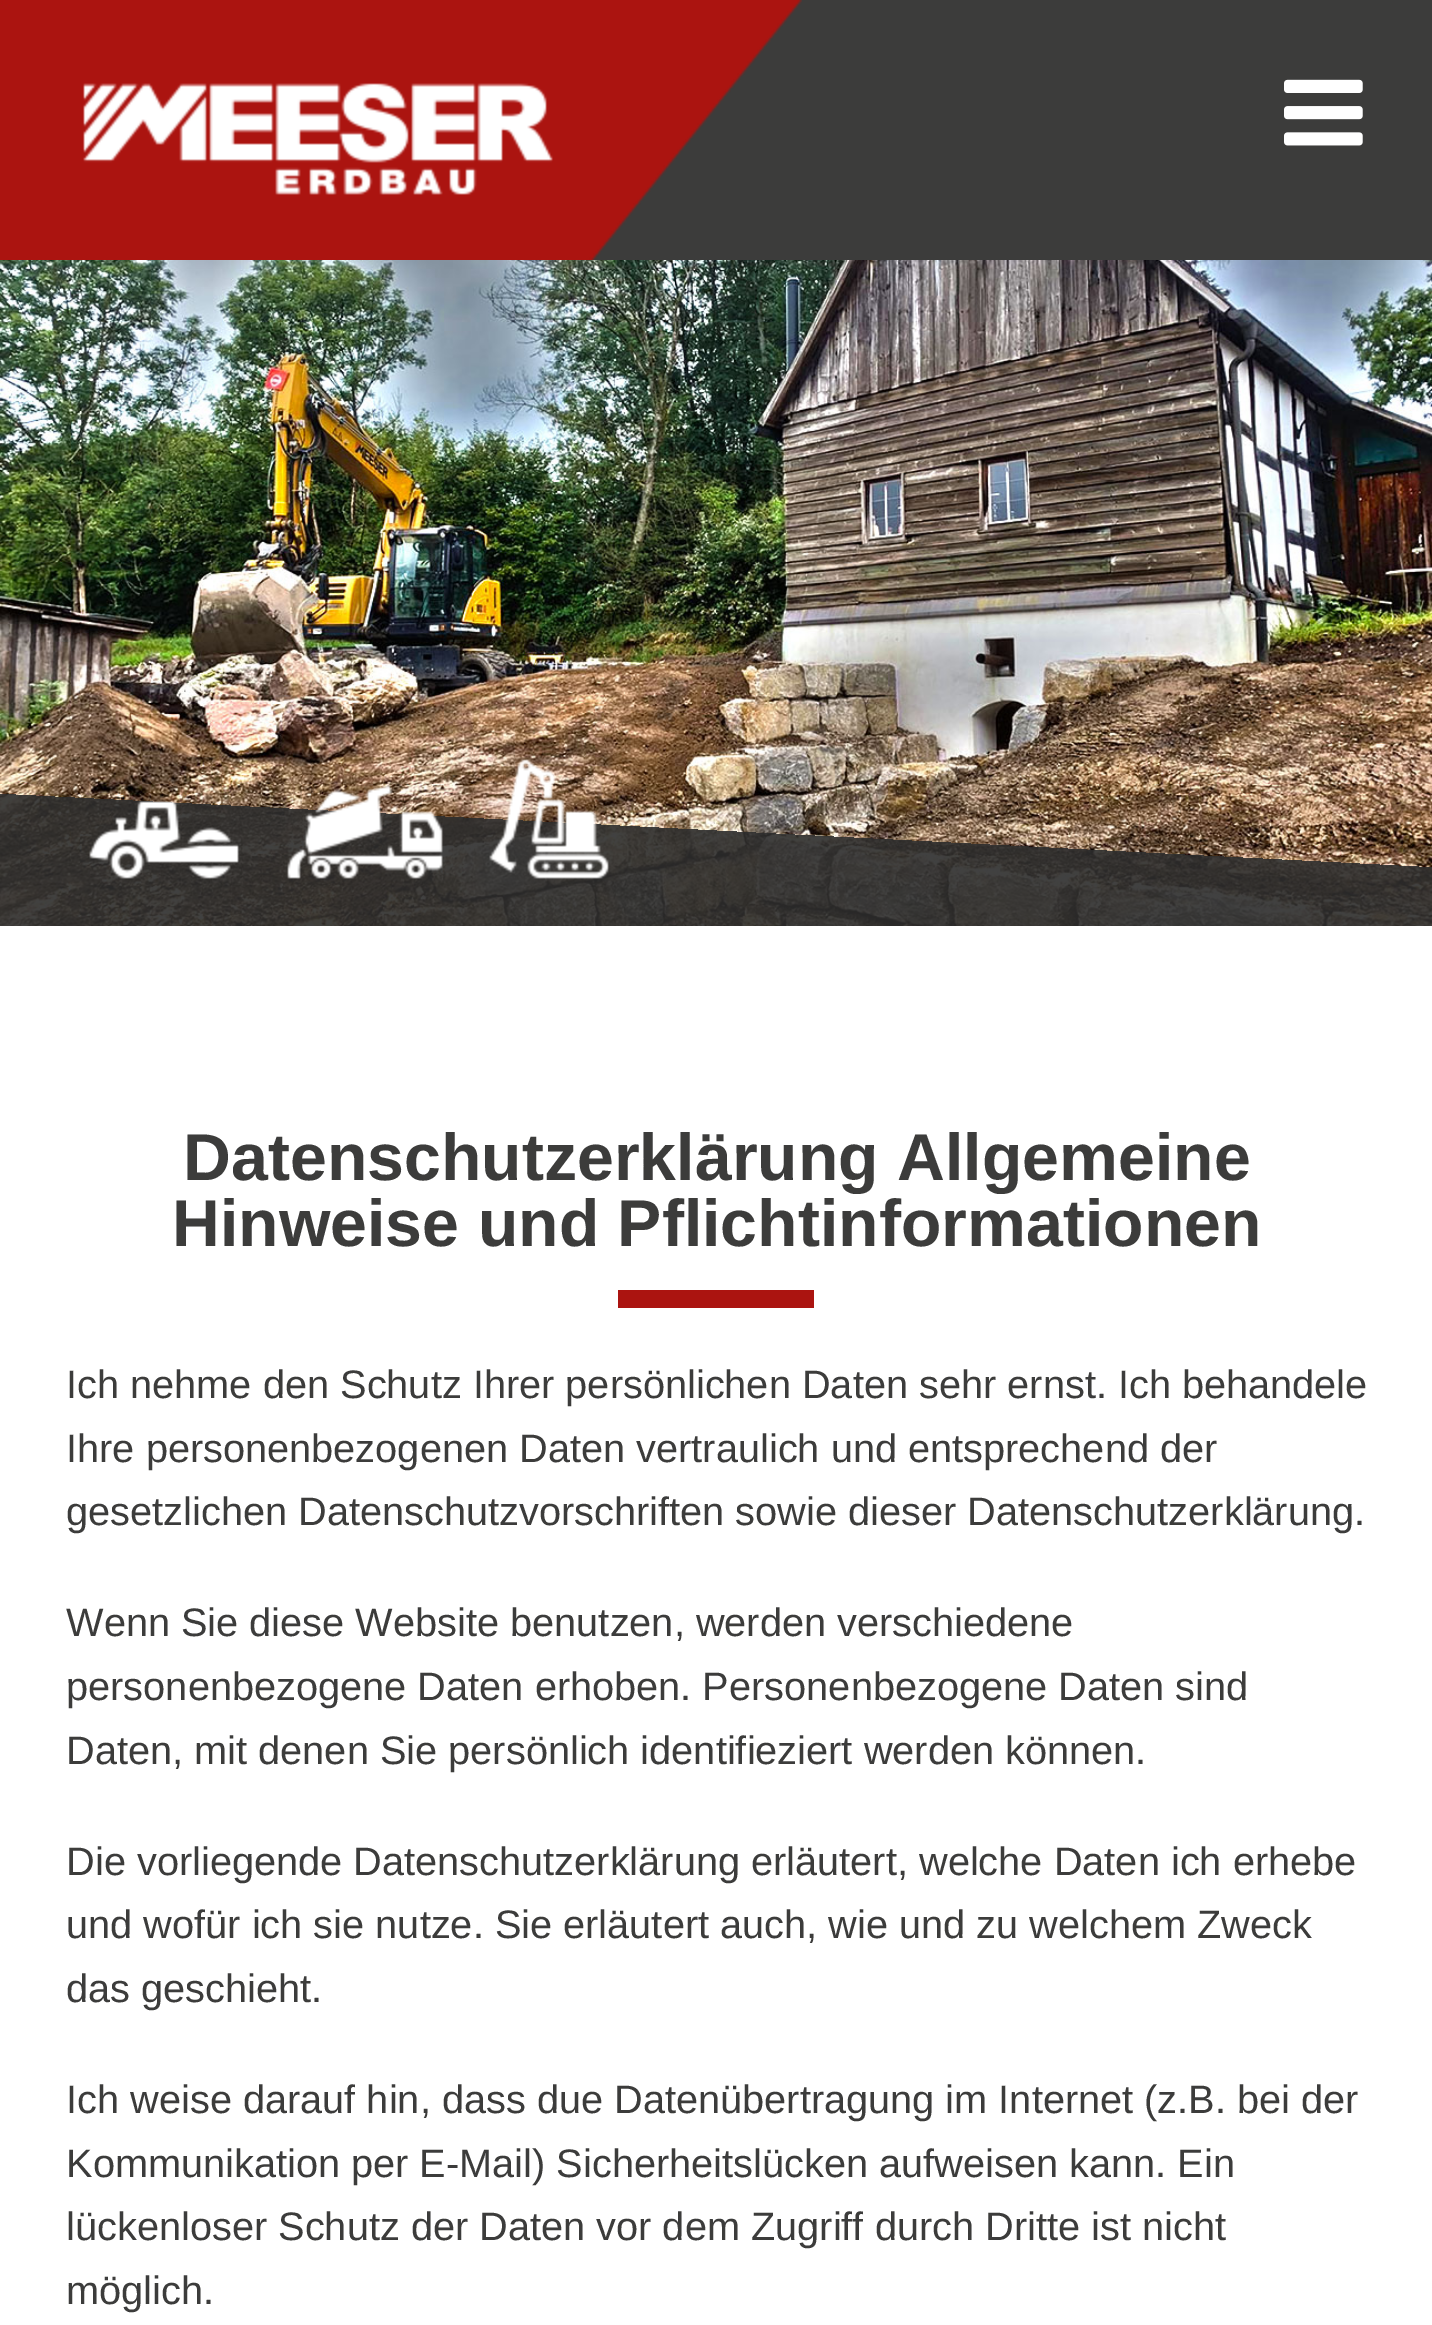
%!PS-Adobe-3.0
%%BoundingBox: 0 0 1432 2325
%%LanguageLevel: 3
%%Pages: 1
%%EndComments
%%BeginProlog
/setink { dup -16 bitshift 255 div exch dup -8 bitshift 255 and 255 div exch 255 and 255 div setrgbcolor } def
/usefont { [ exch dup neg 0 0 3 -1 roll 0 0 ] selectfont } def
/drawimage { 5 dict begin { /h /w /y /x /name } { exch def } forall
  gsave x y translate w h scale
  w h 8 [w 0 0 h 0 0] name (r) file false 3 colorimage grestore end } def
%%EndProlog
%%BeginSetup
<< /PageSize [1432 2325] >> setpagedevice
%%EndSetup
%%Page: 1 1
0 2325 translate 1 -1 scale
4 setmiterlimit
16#FFFFFF setink
0 0 1432 2325 rectfill
16#3C3C3B setink
589 0 843 260 rectfill
(img1.raw) 0 0 802 260 drawimage
(img2.raw) 1284 79 79 67 drawimage
(img3.raw) 0 260 1432 666 drawimage
(img4.raw) 89 759 520 120 drawimage
/LiberationSans-Bold 66.25 usefont
183 1180 moveto (Datenschutzerklärung Allgemeine) show
172 1246 moveto (Hinweise und Pflichtinformationen) show
16#AB1410 setink
618 1290 196 18 rectfill
/LiberationSans-Regular 39.75 usefont
16#3C3C3B setink
[
    [(Ich nehme den Schutz Ihrer persönlichen Daten sehr ernst. Ich behandele) 66 1398]
    [(Ihre personenbezogenen Daten vertraulich und entsprechend der) 66 1462]
    [(gesetzlichen Datenschutzvorschriften sowie dieser Datenschutzerklärung.) 66 1525]
    [(Wenn Sie diese Website benutzen, werden verschiedene) 66 1636]
    [(personenbezogene Daten erhoben. Personenbezogene Daten sind) 66 1700]
    [(Daten, mit denen Sie persönlich identifieziert werden können.) 66 1764]
    [(Die vorliegende Datenschutzerklärung erläutert, welche Daten ich erhebe) 66 1875]
    [(und wofür ich sie nutze. Sie erläutert auch, wie und zu welchem Zweck) 66 1938]
    [(das geschieht.) 66 2002]
    [(Ich weise darauf hin, dass due Datenübertragung im Internet \(z.B. bei der) 66 2113]
    [(Kommunikation per E-Mail\) Sicherheitslücken aufweisen kann. Ein) 66 2177]
    [(lückenloser Schutz der Daten vor dem Zugriff durch Dritte ist nicht) 66 2240]
    [(möglich.) 66 2304]
] { aload pop moveto show } forall
showpage
%%EOF
